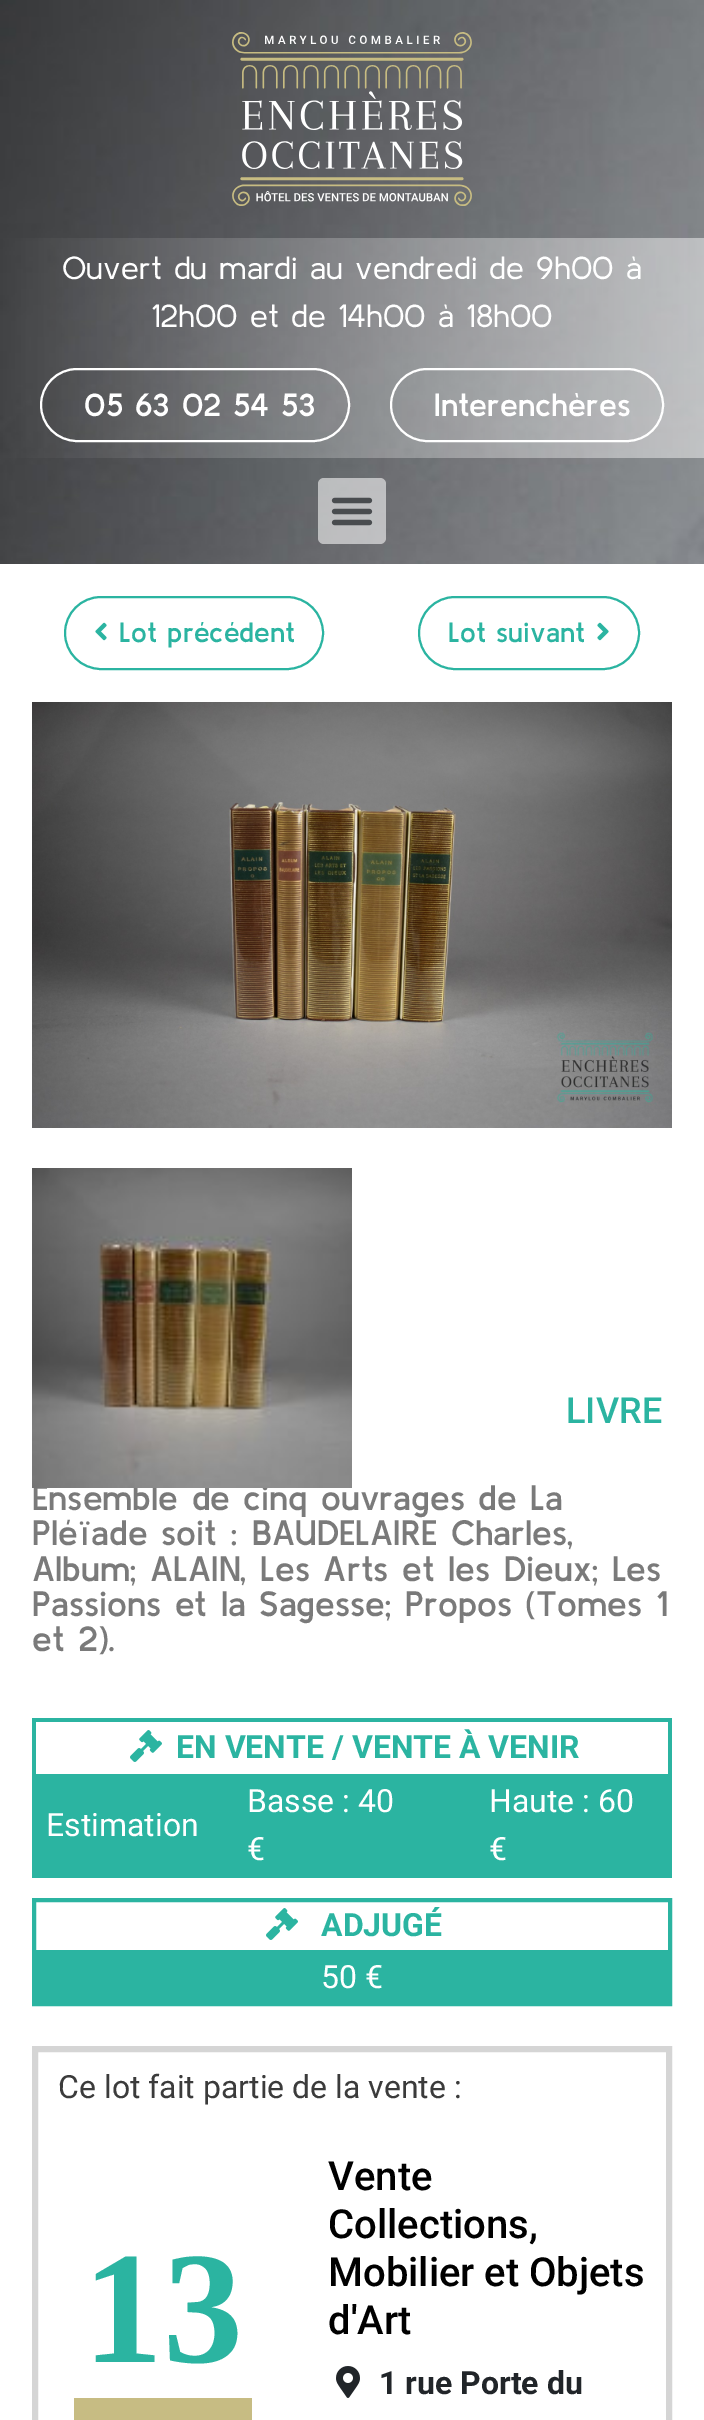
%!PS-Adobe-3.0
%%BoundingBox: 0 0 704 2420
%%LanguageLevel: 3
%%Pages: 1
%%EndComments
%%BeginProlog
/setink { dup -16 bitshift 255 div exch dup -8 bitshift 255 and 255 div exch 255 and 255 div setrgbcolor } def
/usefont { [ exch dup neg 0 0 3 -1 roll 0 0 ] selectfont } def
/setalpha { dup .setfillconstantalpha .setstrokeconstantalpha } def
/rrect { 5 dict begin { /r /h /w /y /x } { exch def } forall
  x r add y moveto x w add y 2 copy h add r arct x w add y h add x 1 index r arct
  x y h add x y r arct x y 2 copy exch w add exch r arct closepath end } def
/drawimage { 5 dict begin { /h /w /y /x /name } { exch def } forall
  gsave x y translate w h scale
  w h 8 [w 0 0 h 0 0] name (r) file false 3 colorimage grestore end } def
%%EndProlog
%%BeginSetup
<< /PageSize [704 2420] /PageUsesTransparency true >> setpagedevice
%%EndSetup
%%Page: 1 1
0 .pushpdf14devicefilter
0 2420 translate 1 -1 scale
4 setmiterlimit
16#FFFFFF setink
0 0 704 2420 rectfill
(img1.raw) 0 0 704 564 drawimage
(img2.raw) 232 32 240 174 drawimage
/KulimPark-Regular 32 usefont
62 279 moveto (Ouvert du mardi au vendredi de 9h00 à) show
151 327 moveto (12h00 et de 14h00 à 18h00) show
2 setlinewidth
41 369 308 72 36 rrect stroke
/KulimPark-SemiBold 32 usefont
84 416 moveto (05 63 02 54 53) show
391 369 272 72 36 rrect stroke
434 416 moveto (Interenchères) show
0.56 setalpha
318 478 68 66 6 rrect fill
1 setalpha
(img3.raw) 331 497 42 29 drawimage
16#2BB4A1 setink
65 597 258 72 36 rrect stroke
(img4.raw) 95 622 12 19 drawimage
/KulimPark-SemiBold 28 usefont
119 642 moveto (Lot précédent) show
419 597 220 72 36 rrect stroke
448 642 moveto (Lot suivant) show
(img5.raw) 597 622 12 19 drawimage
(img6.raw) 32 702 640 426 drawimage
/KulimPark-SemiBold 35.25 usefont
16#7A7A7A setink
32 1510 moveto (Ensemble de cinq ouvrages de La) show
(img7.raw) 32 1168 320 320 drawimage
/Roboto-Medium 36 usefont
16#2BB4A1 setink
566 1423 moveto (LIVRE) show
/KulimPark-SemiBold 35.25 usefont
16#7A7A7A setink
[
    [(Pléïade soit : BAUDELAIRE Charles,) 32 1545]
    [(Album; ALAIN, Les Arts et les Dieux; Les) 32 1581]
    [(Passions et la Sagesse; Propos \(Tomes 1) 32 1616]
    [(et 2\).) 32 1651]
] { aload pop moveto show } forall
[
    [32 1718 640 4 16#2BB4A1]
    [668 1718 4 160 16#2BB4A1]
    [32 1874 640 4 16#2BB4A1]
    [32 1718 4 160 16#2BB4A1]
] { aload pop setink rectfill } forall
(img8.raw) 130 1730 32 32 drawimage
/Roboto-Bold 32 usefont
176 1758 moveto (EN VENTE / VENTE À VENIR) show
36 1778 632 96 rectfill
/Roboto-Regular 32 usefont
16#FFFFFF setink
[
    [(Estimation) 46 1836]
    [(Basse : 40) 247 1812]
    [(€) 247 1860]
] { aload pop moveto show } forall
16#2BB4A1 setink
32 1774 640 4 rectfill
16#FFFFFF setink
489 1812 moveto (Haute : 60) show
489 1860 moveto (€) show
16#2BB4A1 setink
4 setlinewidth
34 1900 636 104 rectstroke
36 1950 632 52 rectfill
(img8.raw) 266 1908 32 32 drawimage
/Roboto-Bold 32 usefont
321 1936 moveto (ADJUGÉ) show
/Roboto-Regular 32 usefont
16#FFFFFF setink
321 1988 moveto (50 €) show
16#D5D5D5 setink
6 setlinewidth
35 2049 634 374 rectstroke
16#3B3B3B setink
58 2098 moveto (Ce lot fait partie de la vente :) show
/LiberationSerif-Bold 160 usefont
16#2BB4A1 setink
83 2362 moveto (13) show
16#C7BC83 setink
74 2398 178 22 rectfill
/Roboto-Medium 40 usefont
16#000000 setink
[
    [(Vente) 328 2190]
    [(Collections,) 328 2238]
    [(Mobilier et Objets) 328 2286]
    [(d'Art) 328 2334]
] { aload pop moveto show } forall
(img9.raw) 336 2366 24 32 drawimage
/Roboto-Bold 32 usefont
16#212529 setink
379 2394 moveto (1 rue Porte du) show
.poppdf14devicefilter showpage
%%EOF
